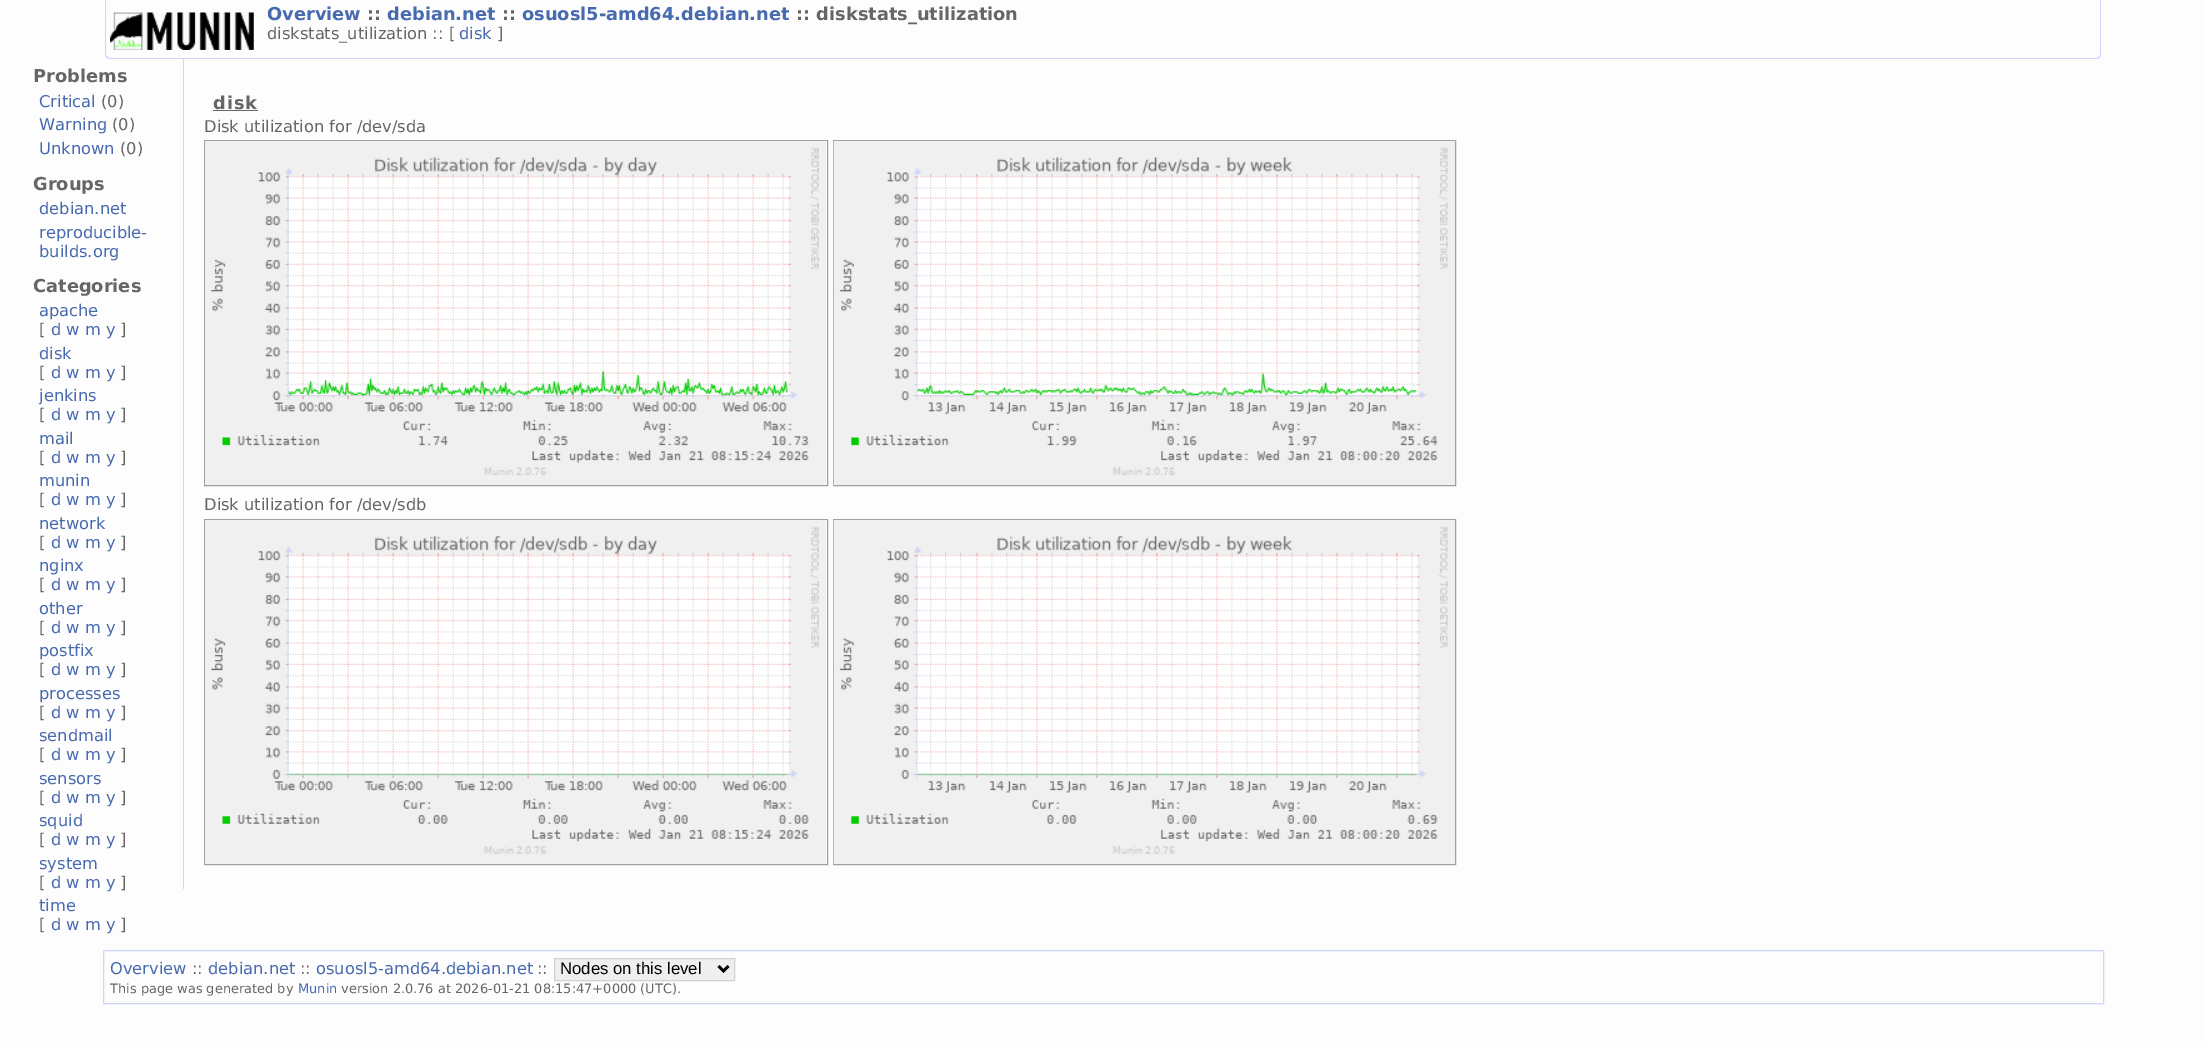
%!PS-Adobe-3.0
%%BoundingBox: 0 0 2206 1047
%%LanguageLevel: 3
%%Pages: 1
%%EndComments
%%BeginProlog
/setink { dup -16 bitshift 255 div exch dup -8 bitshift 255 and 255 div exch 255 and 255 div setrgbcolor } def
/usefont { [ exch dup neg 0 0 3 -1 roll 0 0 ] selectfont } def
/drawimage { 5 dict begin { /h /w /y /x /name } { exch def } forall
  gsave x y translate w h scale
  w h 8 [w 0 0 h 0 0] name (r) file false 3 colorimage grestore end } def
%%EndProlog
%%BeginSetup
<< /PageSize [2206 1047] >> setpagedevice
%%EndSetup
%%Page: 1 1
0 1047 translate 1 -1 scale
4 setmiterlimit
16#FDFDFD setink
0 0 2206 1047 rectfill
16#CFD6F8 setink
105 0 moveto 2101 0 lineto 2101 54 lineto 2101 57 2099 59 2096 59 curveto 110 59 lineto 107 59 105 57 105 54 curveto closepath 106 0 moveto 2100 0 lineto 2100 54 lineto 2100 56 2098 58 2096 58 curveto 110 58 lineto 108 58 106 56 106 54 curveto closepath eofill
(img1.raw) 110 12 144 38 drawimage
/DejaVuSans-Bold 17.8 usefont
16#486AAF setink
267 20 moveto (Overview) show
16#666666 setink
367 20 moveto (::) show
16#486AAF setink
387 20 moveto (debian.net) show
16#666666 setink
502 20 moveto (::) show
16#486AAF setink
522 20 moveto (osuosl5-amd64.debian.net) show
16#666666 setink
796 20 moveto (:: diskstats_utilization) show
/DejaVuSans-Regular 16.25 usefont
267 39 moveto (diskstats_utilization :: [) show
16#486AAF setink
459 39 moveto (disk) show
16#666666 setink
497 39 moveto (]) show
/DejaVuSans-Bold 17.8 usefont
33 82 moveto (Problems) show
/DejaVuSans-Regular 16.25 usefont
16#486AAF setink
39 107 moveto (Critical) show
16#666666 setink
101 107 moveto (\(0\)) show
16#486AAF setink
39 130 moveto (Warning) show
16#666666 setink
112 130 moveto (\(0\)) show
16#486AAF setink
39 154 moveto (Unknown) show
16#666666 setink
120 154 moveto (\(0\)) show
/DejaVuSans-Bold 17.8 usefont
33 190 moveto (Groups) show
/DejaVuSans-Regular 16.25 usefont
16#486AAF setink
[
    [(debian.net) 39 214]
    [(reproducible-) 39 238]
    [(builds.org) 39 257]
] { aload pop moveto show } forall
/DejaVuSans-Bold 17.8 usefont
16#666666 setink
33 292 moveto (Categories) show
/DejaVuSans-Regular 16.25 usefont
16#486AAF setink
39 316 moveto (apache) show
16#666666 setink
39 335 moveto ([) show
16#486AAF setink
51 335 moveto (d w m y) show
16#666666 setink
120 335 moveto (]) show
16#486AAF setink
39 359 moveto (disk) show
16#666666 setink
39 378 moveto ([) show
16#486AAF setink
51 378 moveto (d w m y) show
16#666666 setink
120 378 moveto (]) show
16#486AAF setink
39 401 moveto (jenkins) show
16#666666 setink
39 420 moveto ([) show
16#486AAF setink
51 420 moveto (d w m y) show
16#666666 setink
120 420 moveto (]) show
16#486AAF setink
39 444 moveto (mail) show
16#666666 setink
39 463 moveto ([) show
16#486AAF setink
51 463 moveto (d w m y) show
16#666666 setink
120 463 moveto (]) show
16#486AAF setink
39 486 moveto (munin) show
16#666666 setink
39 505 moveto ([) show
16#486AAF setink
51 505 moveto (d w m y) show
16#666666 setink
120 505 moveto (]) show
16#486AAF setink
39 529 moveto (network) show
16#666666 setink
39 548 moveto ([) show
16#486AAF setink
51 548 moveto (d w m y) show
16#666666 setink
120 548 moveto (]) show
16#486AAF setink
39 571 moveto (nginx) show
16#666666 setink
39 590 moveto ([) show
16#486AAF setink
51 590 moveto (d w m y) show
16#666666 setink
120 590 moveto (]) show
16#486AAF setink
39 614 moveto (other) show
16#666666 setink
39 633 moveto ([) show
16#486AAF setink
51 633 moveto (d w m y) show
16#666666 setink
120 633 moveto (]) show
16#486AAF setink
39 656 moveto (postfix) show
16#666666 setink
39 675 moveto ([) show
16#486AAF setink
51 675 moveto (d w m y) show
16#666666 setink
120 675 moveto (]) show
16#486AAF setink
39 699 moveto (processes) show
16#666666 setink
39 718 moveto ([) show
16#486AAF setink
51 718 moveto (d w m y) show
16#666666 setink
120 718 moveto (]) show
16#486AAF setink
39 741 moveto (sendmail) show
16#666666 setink
39 760 moveto ([) show
16#486AAF setink
51 760 moveto (d w m y) show
16#666666 setink
120 760 moveto (]) show
16#486AAF setink
39 784 moveto (sensors) show
16#666666 setink
39 803 moveto ([) show
16#486AAF setink
51 803 moveto (d w m y) show
16#666666 setink
120 803 moveto (]) show
16#486AAF setink
39 826 moveto (squid) show
16#666666 setink
39 845 moveto ([) show
16#486AAF setink
51 845 moveto (d w m y) show
16#666666 setink
120 845 moveto (]) show
16#486AAF setink
39 869 moveto (system) show
16#666666 setink
39 888 moveto ([) show
16#486AAF setink
51 888 moveto (d w m y) show
16#666666 setink
120 888 moveto (]) show
16#486AAF setink
39 911 moveto (time) show
16#666666 setink
39 930 moveto ([) show
16#486AAF setink
51 930 moveto (d w m y) show
16#666666 setink
120 930 moveto (]) show
16#CFD6F8 setink
183 59 1 830 rectfill
/DejaVuSans-Bold 17.8 usefont
16#666666 setink
213 109 moveto 1 0 (disk) ashow
213 110 45 1 rectfill
/DejaVuSans-Regular 16.25 usefont
204 132 moveto (Disk utilization for /dev/sda) show
16#A0A0A0 setink
204.5 140.5 623 345 rectstroke
(img2.raw) 205 141 621 344 drawimage
833.5 140.5 622 345 rectstroke
(img3.raw) 833 141 622 344 drawimage
16#666666 setink
204 510 moveto (Disk utilization for /dev/sdb) show
16#A0A0A0 setink
204.5 519.5 623 345 rectstroke
(img4.raw) 205 520 621 344 drawimage
833.5 519.5 622 345 rectstroke
(img5.raw) 833 520 622 344 drawimage
16#CFD6F8 setink
103.5 950.5 2000 53 rectstroke
16#486AAF setink
110 974 moveto (Overview) show
16#666666 setink
192 974 moveto (::) show
16#486AAF setink
208 974 moveto (debian.net) show
16#666666 setink
300 974 moveto (::) show
16#486AAF setink
316 974 moveto (osuosl5-amd64.debian.net) show
16#666666 setink
537 974 moveto (::) show
16#EFEFEF setink
554.5 958.5 moveto 734.5 958.5 lineto 734.5 980.5 lineto 554.5 980.5 lineto closepath gsave fill grestore
16#D1D1D1 setink
stroke
16#000000 setink
2.5 setlinewidth
718.5 966 moveto 723.5 971 lineto 728.5 966 lineto stroke
/LiberationSans-Regular 16.75 usefont
560 974 moveto (Nodes on this level) show
/DejaVuSans-Regular 12.95 usefont
16#666666 setink
110 993 moveto (This page was generated by) show
16#486AAF setink
298 993 moveto (Munin) show
16#666666 setink
341 993 moveto (version 2.0.76 at 2026-01-21 08:15:47+0000 \(UTC\).) show
showpage
%%EOF
